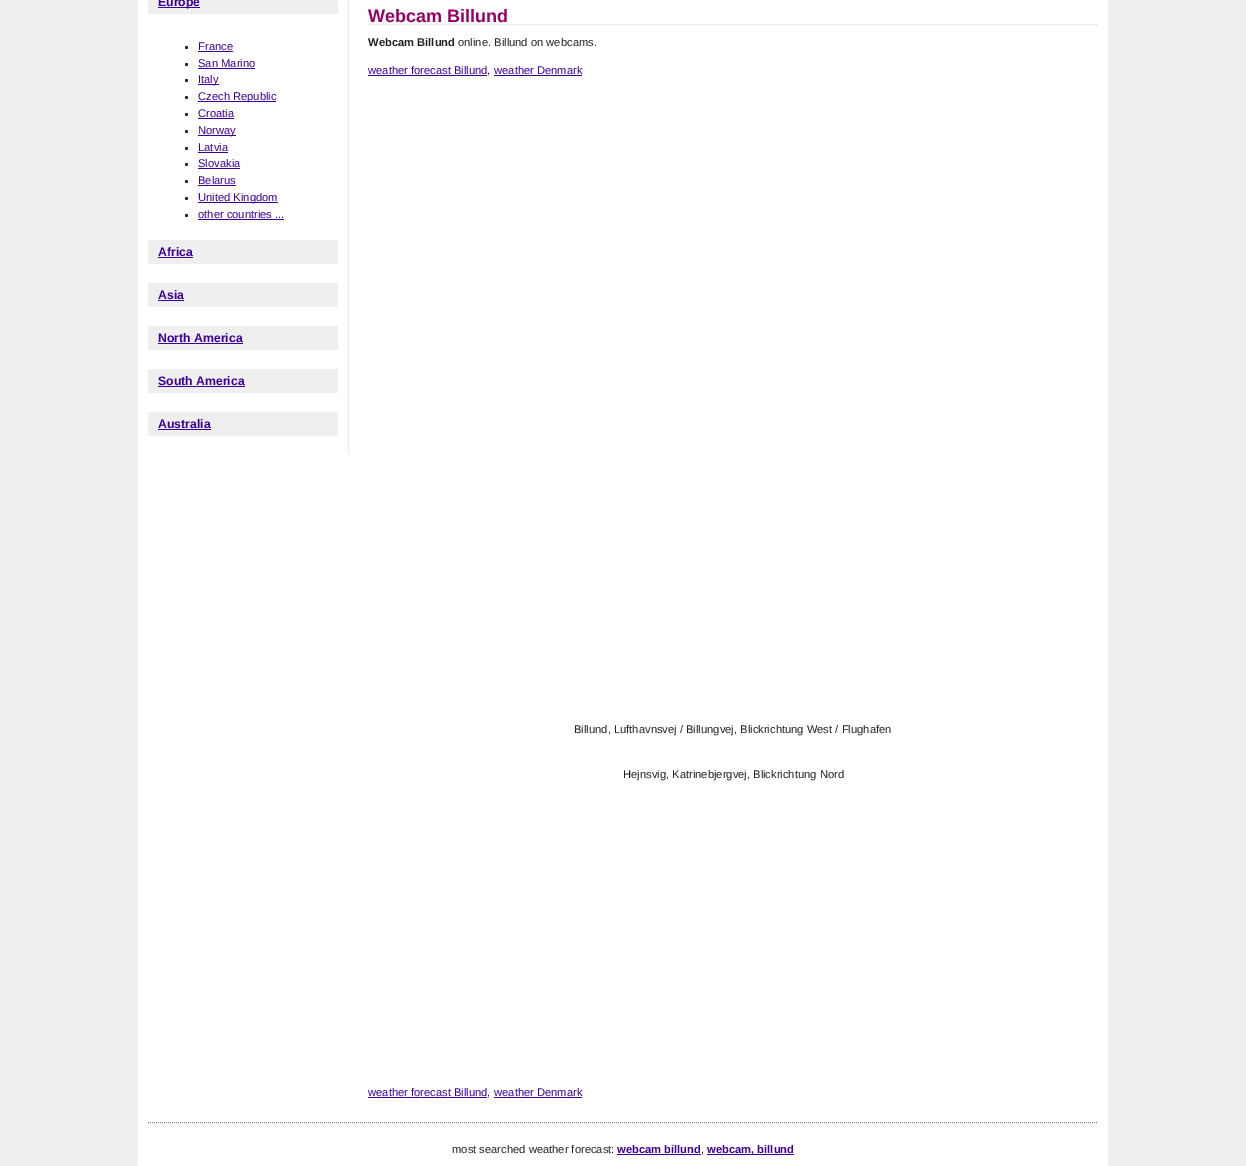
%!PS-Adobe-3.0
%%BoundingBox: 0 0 1246 1166
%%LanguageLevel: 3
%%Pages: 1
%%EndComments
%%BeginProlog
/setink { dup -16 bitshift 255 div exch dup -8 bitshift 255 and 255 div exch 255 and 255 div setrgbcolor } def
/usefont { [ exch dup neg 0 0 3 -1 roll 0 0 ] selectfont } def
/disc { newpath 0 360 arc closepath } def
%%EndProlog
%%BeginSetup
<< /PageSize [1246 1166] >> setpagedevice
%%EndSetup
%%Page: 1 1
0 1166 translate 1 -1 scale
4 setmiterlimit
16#EFEFEF setink
0 0 1246 1166 rectfill
16#FFFFFF setink
138 0 970 1166 rectfill
16#DCDCDC setink
[1 1] 0 setdash
348.5 -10 moveto 348.5 454 lineto stroke
16#EFEFEF setink
148 0 190 14 rectfill
16#3B0099 setink
158 7 42 1 rectfill
/LiberationSans-Bold 12.25 usefont
158 6 moveto (Europe) show
16#222222 setink
186.5 47.5 1.5 disc fill
/LiberationSans-Regular 11.2 usefont
16#3B0099 setink
198 50 moveto (France) show
198 51 35 1 rectfill
16#222222 setink
186.5 64.5 1.5 disc fill
16#3B0099 setink
198 67 moveto (San Marino) show
198 68 57 1 rectfill
16#222222 setink
186.5 80.5 1.5 disc fill
16#3B0099 setink
198 84 21 1 rectfill
198 83 moveto (Italy) show
16#222222 setink
186.5 97.5 1.5 disc fill
16#3B0099 setink
198 101 78 1 rectfill
198 100 moveto (Czech Republic) show
16#222222 setink
186.5 114.5 1.5 disc fill
16#3B0099 setink
198 117 moveto (Croatia) show
198 118 36 1 rectfill
16#222222 setink
186.5 131.5 1.5 disc fill
16#3B0099 setink
198 135 38 1 rectfill
198 134 moveto (Norway) show
16#222222 setink
186.5 148.5 1.5 disc fill
16#3B0099 setink
198 151 moveto (Latvia) show
198 152 30 1 rectfill
16#222222 setink
186.5 164.5 1.5 disc fill
16#3B0099 setink
198 167 moveto (Slovakia) show
198 168 42 1 rectfill
16#222222 setink
186.5 181.5 1.5 disc fill
16#3B0099 setink
198 184 moveto (Belarus) show
198 185 38 1 rectfill
16#222222 setink
186.5 198.5 1.5 disc fill
16#3B0099 setink
198 202 80 1 rectfill
198 201 moveto (United Kingdom) show
16#222222 setink
186.5 215.5 1.5 disc fill
16#3B0099 setink
198 218 moveto (other countries ...) show
198 219 86 1 rectfill
16#EFEFEF setink
148 240 190 24 rectfill
/LiberationSans-Bold 12.25 usefont
16#3B0099 setink
158 256 moveto (Africa) show
158 257 35 1 rectfill
16#EFEFEF setink
148 283 190 24 rectfill
16#3B0099 setink
158 299 moveto (Asia) show
158 300 26 1 rectfill
16#EFEFEF setink
148 326 190 24 rectfill
16#3B0099 setink
158 342 moveto (North America) show
158 343 85 1 rectfill
16#EFEFEF setink
148 369 190 24 rectfill
16#3B0099 setink
158 385 moveto (South America) show
158 386 87 1 rectfill
16#EFEFEF setink
148 412 190 24 rectfill
16#3B0099 setink
158 428 moveto (Australia) show
158 429 53 1 rectfill
16#DCDCDC setink
368 24.5 moveto 1098 24.5 lineto stroke
/LiberationSans-Bold 18 usefont
16#990066 setink
368 22 moveto (Webcam Billund) show
/LiberationSans-Bold 11.2 usefont
16#222222 setink
368 46 moveto (Webcam Billund) show
/LiberationSans-Regular 11.2 usefont
458 46 moveto (online. Billund on webcams.) show
16#3B0099 setink
368 74 moveto (weather forecast Billund) show
368 75 119 1 rectfill
16#222222 setink
487 74 moveto (,) show
16#3B0099 setink
494 74 moveto (weather Denmark) show
494 75 88 1 rectfill
16#222222 setink
574 733 moveto (Billund, Lufthavnsvej / Billungvej, Blickrichtung West / Flughafen) show
623 778 moveto (Hejnsvig, Katrinebjergvej, Blickrichtung Nord) show
16#3B0099 setink
368 1096 moveto (weather forecast Billund) show
368 1097 119 1 rectfill
16#222222 setink
487 1096 moveto (,) show
16#3B0099 setink
494 1096 moveto (weather Denmark) show
494 1097 88 1 rectfill
16#808080 setink
148 1122.5 moveto 1098 1122.5 lineto stroke
16#222222 setink
452 1153 moveto (most searched weather forecast:) show
/LiberationSans-Bold 11.2 usefont
16#3B0099 setink
617 1153 moveto (webcam billund) show
617 1154 84 1 rectfill
/LiberationSans-Regular 11.2 usefont
16#222222 setink
701 1153 moveto (,) show
16#3B0099 setink
707 1154 87 1 rectfill
/LiberationSans-Bold 11.2 usefont
707 1153 moveto (webcam, billund) show
showpage
%%EOF
